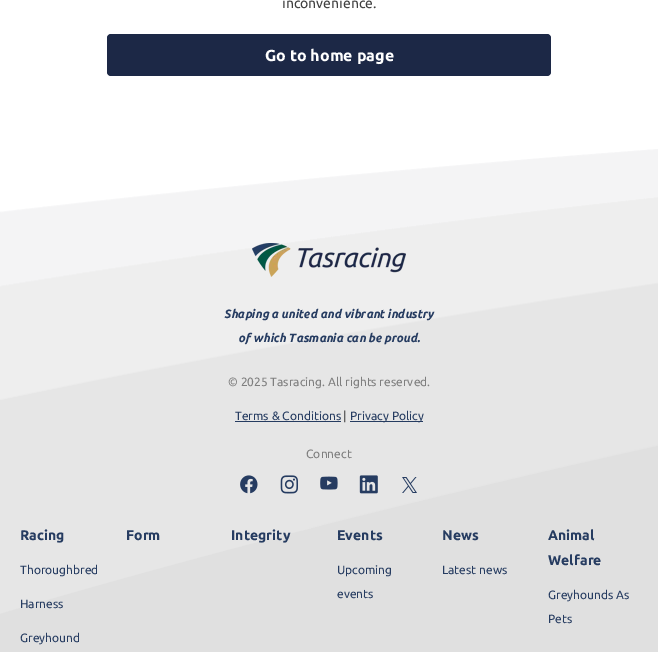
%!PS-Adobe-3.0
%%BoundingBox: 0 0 658 652
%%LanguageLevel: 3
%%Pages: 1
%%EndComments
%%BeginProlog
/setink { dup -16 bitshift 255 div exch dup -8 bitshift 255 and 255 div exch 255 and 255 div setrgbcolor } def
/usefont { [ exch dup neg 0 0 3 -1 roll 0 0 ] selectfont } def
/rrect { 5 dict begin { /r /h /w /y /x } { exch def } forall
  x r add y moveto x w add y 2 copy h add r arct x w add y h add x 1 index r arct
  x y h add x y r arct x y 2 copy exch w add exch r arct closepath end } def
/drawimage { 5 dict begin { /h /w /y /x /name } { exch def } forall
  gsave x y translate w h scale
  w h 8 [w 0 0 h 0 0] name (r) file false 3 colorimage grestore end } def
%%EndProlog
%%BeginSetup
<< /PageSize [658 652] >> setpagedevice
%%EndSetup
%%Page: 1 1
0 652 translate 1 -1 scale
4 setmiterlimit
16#FFFFFF setink
0 0 658 652 rectfill
/Ubuntu-Regular 14 usefont
16#404040 setink
282 8 moveto (inconvenience.) show
16#1C2846 setink
107 34 444 42 4 rrect fill
/Ubuntu-Bold 16 usefont
16#FFFFFF setink
265 61 moveto (Go to home page) show
(img1.raw) 0 149 658 503 drawimage
(img2.raw) 252 243 154 34 drawimage
/Ubuntu-BoldItalic 12 usefont
16#263C61 setink
224 318 moveto (Shaping a united and vibrant industry) show
238 342 moveto (of which Tasmania can be proud.) show
/Ubuntu-Regular 12 usefont
16#7F7F7F setink
228 386 moveto (© 2025 Tasracing. All rights reserved.) show
16#263C61 setink
235 420 moveto (Terms & Conditions) show
235 421 106 1 rectfill
16#333333 setink
343 420 moveto (|) show
16#263C61 setink
350 421 73 1 rectfill
350 420 moveto (Privacy Policy) show
16#7F7F7F setink
306 458 moveto (Connect) show
(img3.raw) 240 475 18 19 drawimage
(img4.raw) 280 475 18 19 drawimage
(img5.raw) 320 476 18 14 drawimage
(img6.raw) 359 475 19 19 drawimage
(img7.raw) 402 477 15 16 drawimage
/Ubuntu-Bold 14 usefont
16#263C61 setink
20 540 moveto (Racing) show
/Ubuntu-Regular 12 usefont
[
    [(Thoroughbred) 20 574]
    [(Harness) 20 608]
    [(Greyhound) 20 642]
] { aload pop moveto show } forall
/Ubuntu-Bold 14 usefont
[
    [(Form) 126 540]
    [(Integrity) 231 540]
    [(Events) 337 540]
] { aload pop moveto show } forall
/Ubuntu-Regular 12 usefont
337 574 moveto (Upcoming) show
337 598 moveto (events) show
/Ubuntu-Bold 14 usefont
442 540 moveto (News) show
/Ubuntu-Regular 12 usefont
442 574 moveto (Latest news) show
/Ubuntu-Bold 14 usefont
548 540 moveto (Animal) show
548 565 moveto (Welfare) show
/Ubuntu-Regular 12 usefont
548 599 moveto (Greyhounds As) show
548 623 moveto (Pets) show
showpage
%%EOF
